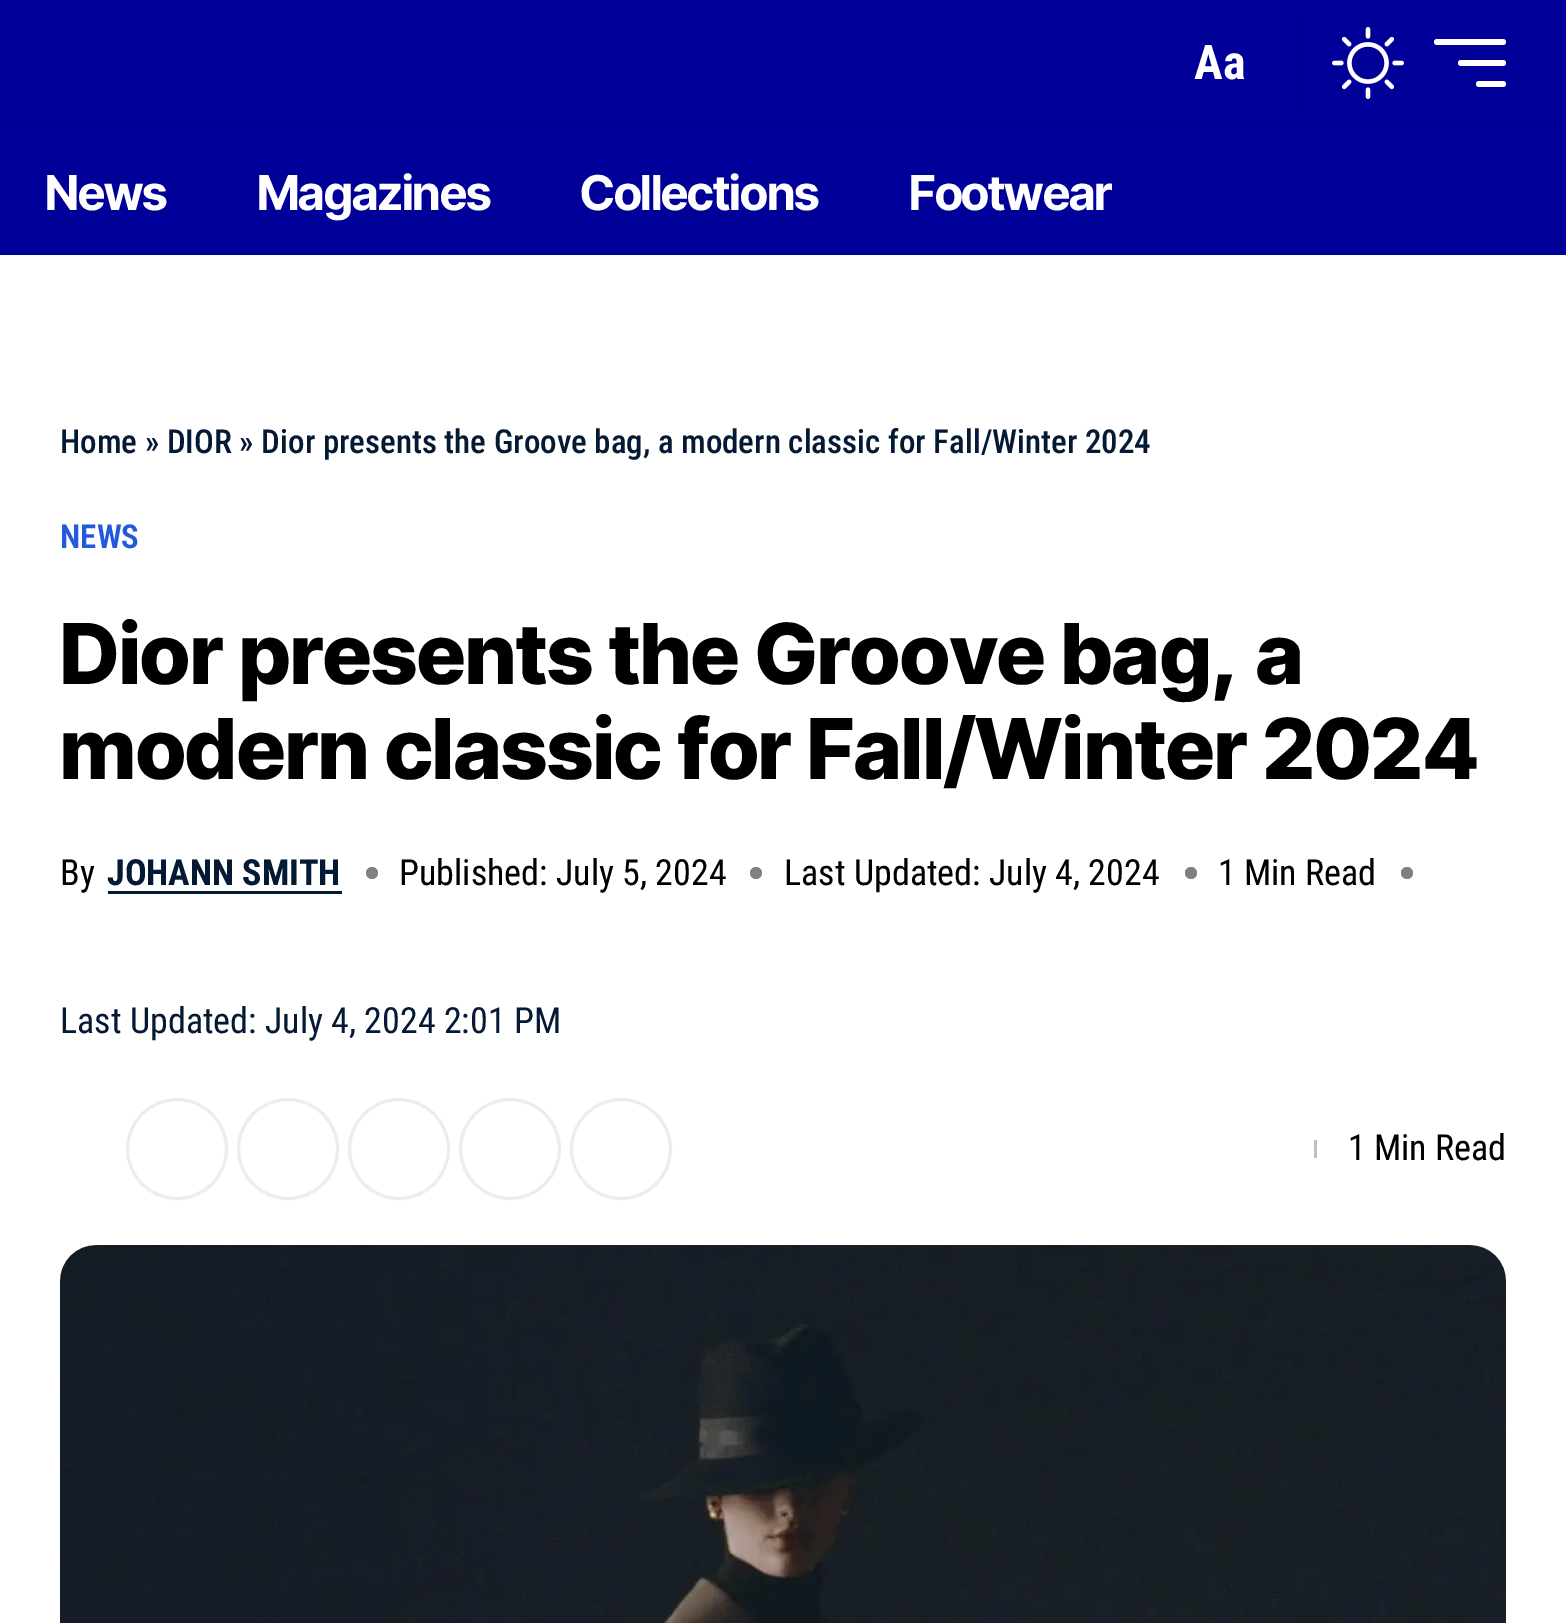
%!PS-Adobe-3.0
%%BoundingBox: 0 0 1566 1623
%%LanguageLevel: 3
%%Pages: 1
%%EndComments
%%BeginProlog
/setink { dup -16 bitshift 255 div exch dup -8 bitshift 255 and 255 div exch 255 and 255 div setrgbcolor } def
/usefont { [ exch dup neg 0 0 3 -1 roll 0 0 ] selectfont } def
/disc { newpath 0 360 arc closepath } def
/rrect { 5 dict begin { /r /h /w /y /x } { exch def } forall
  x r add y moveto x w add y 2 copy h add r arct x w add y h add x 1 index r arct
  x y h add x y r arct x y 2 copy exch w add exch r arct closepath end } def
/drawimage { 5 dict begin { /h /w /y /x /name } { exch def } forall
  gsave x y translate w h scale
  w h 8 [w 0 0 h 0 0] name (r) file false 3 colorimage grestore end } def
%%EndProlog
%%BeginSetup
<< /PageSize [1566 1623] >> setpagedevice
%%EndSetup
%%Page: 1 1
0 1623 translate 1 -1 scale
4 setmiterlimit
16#FFFFFF setink
0 0 1566 1623 rectfill
16#000098 setink
0 0 1566 255 rectfill
/RobotoCondensed-Bold 48 usefont
16#FFFFFF setink
1194 79 moveto (Aa) show
16#00008C setink
1299 15 3 96 rectfill
(img1.raw) 1332 27 72 72 drawimage
16#FFFFFF setink
1434 39 72 6 3 rrect fill
1458 60 48 6 3 rrect fill
1476 81 30 6 3 rrect fill
16#00008C setink
0 126 1566 3 rectfill
/InterTight-Bold 48 usefont
16#FFFFFF setink
45 210 moveto -1 0 (News) ashow
257 210 moveto -1 0 (Magazines) ashow
580 210 moveto -1 0 (Collections) ashow
909 210 moveto -1 0 (Footwear) ashow
/RobotoCondensed-Medium 33 usefont
16#031934 setink
60 453 moveto (Home » DIOR » Dior presents the Groove bag, a modern classic for Fall/Winter 2024) show
/RobotoCondensed-SemiBold 33 usefont
16#235ADB setink
60 548 moveto (NEWS) show
/InterTight-ExtraBold 84 usefont
16#000000 setink
60 684 moveto (Dior presents the Groove bag, a) show
60 779 moveto (modern classic for Fall/Winter 2024) show
/RobotoCondensed-Regular 36 usefont
60 885 moveto (By) show
/RobotoCondensed-Bold 36 usefont
16#031934 setink
107 885 moveto (JOHANN SMITH) show
108 891 234 3 rectfill
16#808080 setink
372 873 6 disc fill
/RobotoCondensed-Regular 36 usefont
16#000000 setink
399 885 moveto (Published: July 5, 2024) show
16#808080 setink
756 873 6 disc fill
16#000000 setink
784 885 moveto (Last Updated: July 4, 2024) show
16#808080 setink
1191 873 6 disc fill
16#000000 setink
1218 885 moveto (1 Min Read) show
16#808080 setink
1407 873 6 disc fill
16#031934 setink
60 1033 moveto (Last Updated: July 4, 2024 2:01 PM) show
16#EDEDED setink
3 setlinewidth
177 1149 49.5 disc stroke
288 1149 49.5 disc stroke
399 1149 49.5 disc stroke
510 1149 49.5 disc stroke
621 1149 49.5 disc stroke
16#BFBFBF setink
1314 1140 3 18 rectfill
16#000000 setink
1348 1160 moveto (1 Min Read) show
(img2.raw) 60 1245 1446 378 drawimage
showpage
%%EOF
